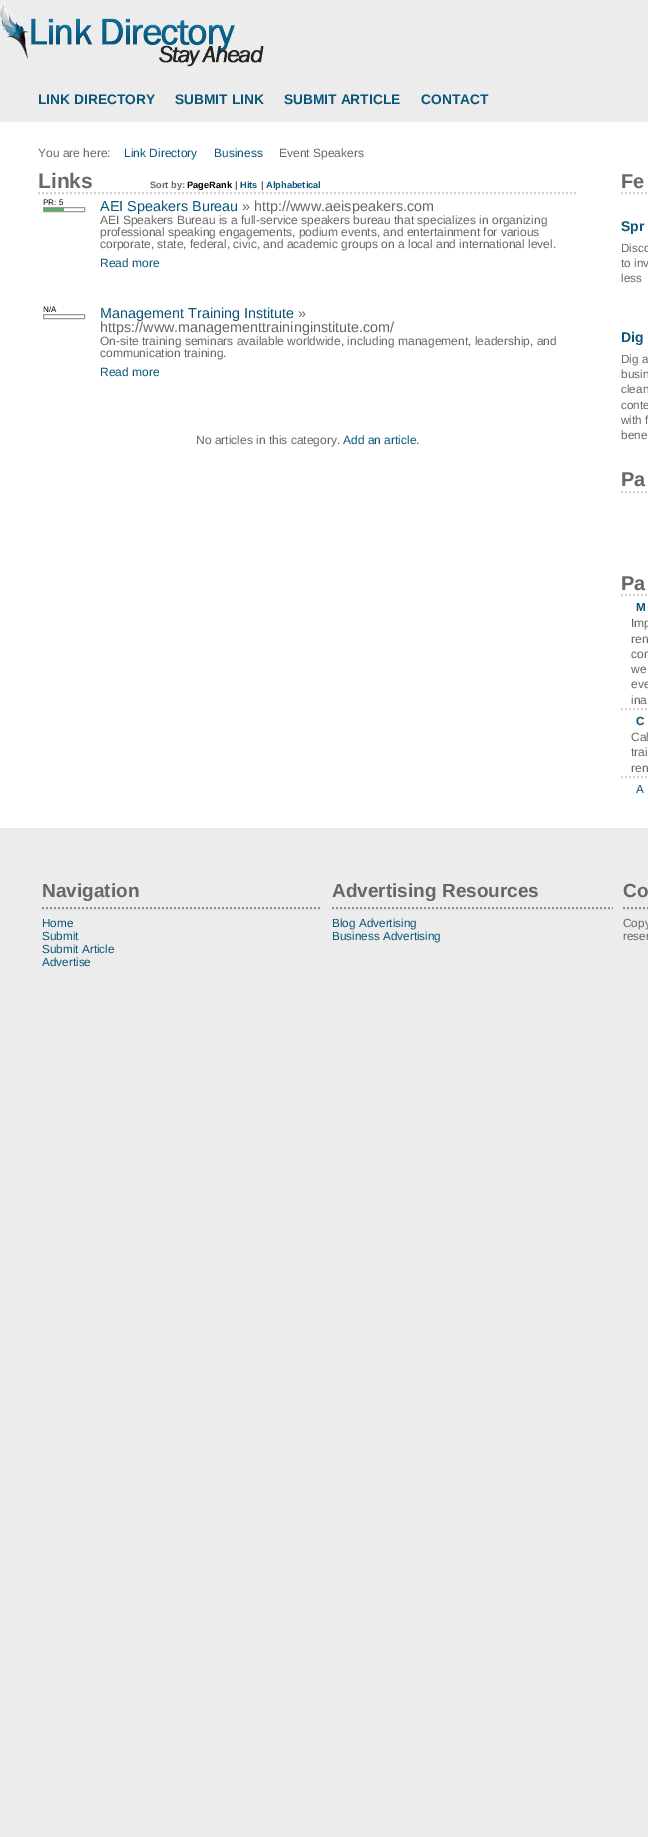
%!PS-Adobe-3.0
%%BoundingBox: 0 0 648 1837
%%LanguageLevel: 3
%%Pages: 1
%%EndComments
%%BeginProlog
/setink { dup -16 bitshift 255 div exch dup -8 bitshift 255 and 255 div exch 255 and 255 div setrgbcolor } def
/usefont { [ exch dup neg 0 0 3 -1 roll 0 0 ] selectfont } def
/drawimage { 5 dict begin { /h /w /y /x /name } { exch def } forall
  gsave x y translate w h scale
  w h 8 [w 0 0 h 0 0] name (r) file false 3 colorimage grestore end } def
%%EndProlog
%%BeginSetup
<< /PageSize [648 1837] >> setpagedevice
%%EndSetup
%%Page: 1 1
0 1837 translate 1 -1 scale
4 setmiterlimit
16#ECECEC setink
0 0 648 1837 rectfill
(img1.raw) 0 2 264 65 drawimage
/LiberationSans-Bold 13.75 usefont
16#0A5579 setink
[
    [(LINK DIRECTORY) 38 104]
    [(SUBMIT LINK) 175 104]
    [(SUBMIT ARTICLE) 284 104]
    [(CONTACT) 421 104]
] { aload pop moveto show } forall
16#FFFFFF setink
0 122 648 706 rectfill
/LiberationSans-Regular 12 usefont
16#676765 setink
38 157 moveto (You are here:) show
16#0A5579 setink
124 157 moveto (Link Directory) show
214 157 moveto (Business) show
16#676765 setink
279 157 moveto (Event Speakers) show
16#D1D1D1 setink
2 setlinewidth
[2 2] 0 setdash
38 193 moveto 578 193 lineto stroke
/LiberationSans-Bold 21 usefont
16#676765 setink
38 188 moveto (Links) show
/LiberationSans-Bold 9.25 usefont
150 188 moveto (Sort by:) show
16#000000 setink
187 188 moveto (PageRank) show
16#676765 setink
235 188 moveto (|) show
16#0A5579 setink
240 188 moveto (Hits) show
16#676765 setink
261 188 moveto (|) show
16#0A5579 setink
266 188 moveto (Alphabetical) show
/LiberationSans-Regular 8 usefont
16#000000 setink
43 205 moveto (PR: 5) show
16#999999 setink
1 setlinewidth
[] 0 setdash
43.5 207.5 41 4 rectstroke
16#5EAA5E setink
44 208 20 3 rectfill
/LiberationSans-Regular 14.4 usefont
16#0A5579 setink
100 211 moveto (AEI Speakers Bureau) show
16#676765 setink
242 211 moveto (» http://www.aeispeakers.com) show
/LiberationSans-Regular 12 usefont
[
    [(AEI Speakers Bureau is a full-service speakers bureau that specializes in organizing) 100 224]
    [(professional speaking engagements, podium events, and entertainment for various) 100 236]
    [(corporate, state, federal, civic, and academic groups on a local and international level.) 100 248]
] { aload pop moveto show } forall
16#0A5579 setink
100 267 moveto (Read more) show
/LiberationSans-Regular 8 usefont
16#000000 setink
43 312 moveto (N/A) show
16#999999 setink
43.5 314.5 41 4 rectstroke
/LiberationSans-Regular 14.4 usefont
16#0A5579 setink
100 318 moveto (Management Training Institute) show
16#676765 setink
298 318 moveto (») show
100 332 moveto (https://www.managementtraininginstitute.com/) show
/LiberationSans-Regular 12 usefont
100 345 moveto (On-site training seminars available worldwide, including management, leadership, and) show
100 357 moveto (communication training.) show
16#0A5579 setink
100 376 moveto (Read more) show
16#676765 setink
196 444 moveto (No articles in this category.) show
16#0A5579 setink
343 444 moveto (Add an article.) show
/LiberationSans-Bold 20 usefont
16#676765 setink
621 188 moveto (Fe) show
16#D1D1D1 setink
2 setlinewidth
[2 2] 0 setdash
621 193 moveto 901 193 lineto stroke
/LiberationSans-Bold 14 usefont
16#0A5579 setink
621 231 moveto (Spr) show
/LiberationSans-Regular 11.75 usefont
16#676765 setink
[
    [(Disco) 621 252]
    [(to inv) 621 267]
    [(less) 621 282]
] { aload pop moveto show } forall
/LiberationSans-Bold 14 usefont
16#0A5579 setink
621 342 moveto (Dig) show
/LiberationSans-Regular 11.75 usefont
16#676765 setink
[
    [(Dig a) 621 363]
    [(busin) 621 378]
    [(clean) 621 393]
    [(conte) 621 409]
    [(with f) 621 424]
    [(bene) 621 439]
] { aload pop moveto show } forall
/LiberationSans-Bold 20 usefont
621 486 moveto (Pa) show
16#D1D1D1 setink
621 492 moveto 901 492 lineto stroke
16#676765 setink
621 590 moveto (Pa) show
16#D1D1D1 setink
621 595 moveto 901 595 lineto stroke
/LiberationSans-Bold 11.75 usefont
16#0A5579 setink
636 611 moveto (M) show
/LiberationSans-Regular 12 usefont
16#676765 setink
[
    [(Imp) 631 627]
    [(ren) 631 643]
    [(com) 631 658]
    [(we) 631 673]
    [(eve) 631 688]
    [(ina) 631 704]
] { aload pop moveto show } forall
16#D1D1D1 setink
621 709 moveto 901 709 lineto stroke
/LiberationSans-Bold 11.75 usefont
16#0A5579 setink
636 725 moveto (C) show
/LiberationSans-Regular 12 usefont
16#676765 setink
[
    [(Cal) 631 741]
    [(trai) 631 756]
    [(ren) 631 772]
] { aload pop moveto show } forall
16#D1D1D1 setink
621 777 moveto 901 777 lineto stroke
/LiberationSans-Regular 11.75 usefont
16#0A5579 setink
636 793 moveto (A) show
16#929292 setink
42 908 moveto 322 908 lineto stroke
/LiberationSans-Bold 19 usefont
16#676765 setink
42 897 moveto (Navigation) show
/LiberationSans-Regular 11.75 usefont
16#0A5579 setink
[
    [(Home) 42 927]
    [(Submit) 42 940]
    [(Submit Article) 42 953]
    [(Advertise) 42 966]
] { aload pop moveto show } forall
16#929292 setink
332 908 moveto 613 908 lineto stroke
/LiberationSans-Bold 19 usefont
16#676765 setink
332 897 moveto (Advertising Resources) show
/LiberationSans-Regular 11.75 usefont
16#0A5579 setink
332 927 moveto (Blog Advertising) show
332 940 moveto (Business Advertising) show
16#929292 setink
623 908 moveto 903 908 lineto stroke
/LiberationSans-Bold 19 usefont
16#676765 setink
623 897 moveto (Co) show
/LiberationSans-Regular 11.75 usefont
623 927 moveto (Copy) show
623 940 moveto (reser) show
showpage
%%EOF
